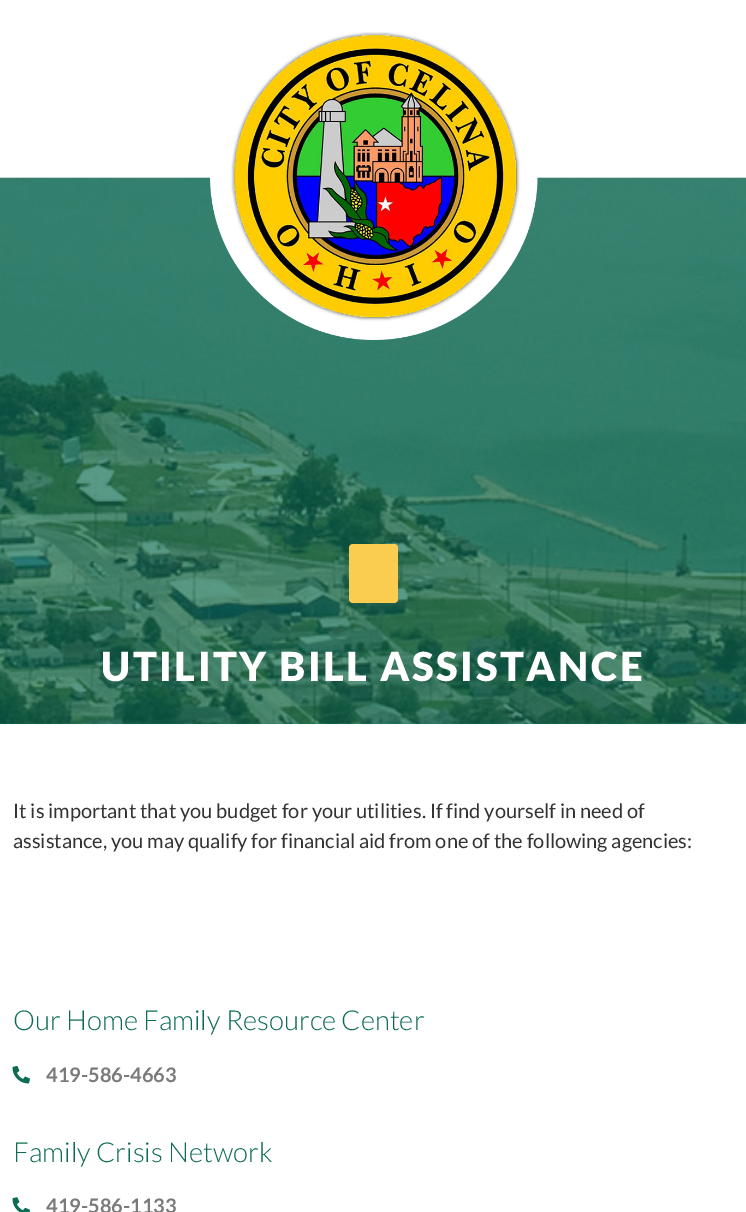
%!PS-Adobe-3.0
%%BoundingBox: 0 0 746 1212
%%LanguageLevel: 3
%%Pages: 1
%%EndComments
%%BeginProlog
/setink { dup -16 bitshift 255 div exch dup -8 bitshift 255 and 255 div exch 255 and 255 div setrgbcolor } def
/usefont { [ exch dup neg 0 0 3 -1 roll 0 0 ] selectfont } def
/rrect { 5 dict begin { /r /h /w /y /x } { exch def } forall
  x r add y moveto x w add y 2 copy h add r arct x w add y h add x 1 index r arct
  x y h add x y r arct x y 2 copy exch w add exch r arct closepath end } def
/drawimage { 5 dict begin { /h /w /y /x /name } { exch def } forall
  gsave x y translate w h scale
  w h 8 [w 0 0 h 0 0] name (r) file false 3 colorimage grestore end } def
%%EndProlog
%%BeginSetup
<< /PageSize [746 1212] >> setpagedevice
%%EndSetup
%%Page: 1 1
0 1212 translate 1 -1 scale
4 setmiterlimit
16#FFFFFF setink
0 0 746 1212 rectfill
(img2.raw) 0 177 746 547 drawimage
(img1.raw) 210 32 328 308 drawimage
16#FACD51 setink
349 544 49 59 4 rrect fill
/Lato-Black 40 usefont
16#FFFFFF setink
101 681 moveto 2.5 0 (UTILITY BILL ASSISTANCE) ashow
/Lato-Regular 20 usefont
16#333333 setink
13 818 moveto (It is important that you budget for your utilities. If find yourself in need of) show
13 848 moveto (assistance, you may qualify for financial aid from one of the following agencies:) show
/Lato-Light 27.5 usefont
16#0D6D52 setink
13 1030 moveto (Our Home Family Resource Center) show
(img3.raw) 12 1066 18 18 drawimage
/Lato-Bold 20 usefont
16#7A7A7A setink
46 1082 moveto (419-586-4663) show
/Lato-Light 27.5 usefont
16#0D6D52 setink
13 1162 moveto (Family Crisis Network) show
(img4.raw) 12 1197 18 15 drawimage
/Lato-Bold 20 usefont
16#7A7A7A setink
46 1213 moveto (419-586-1133) show
showpage
%%EOF
